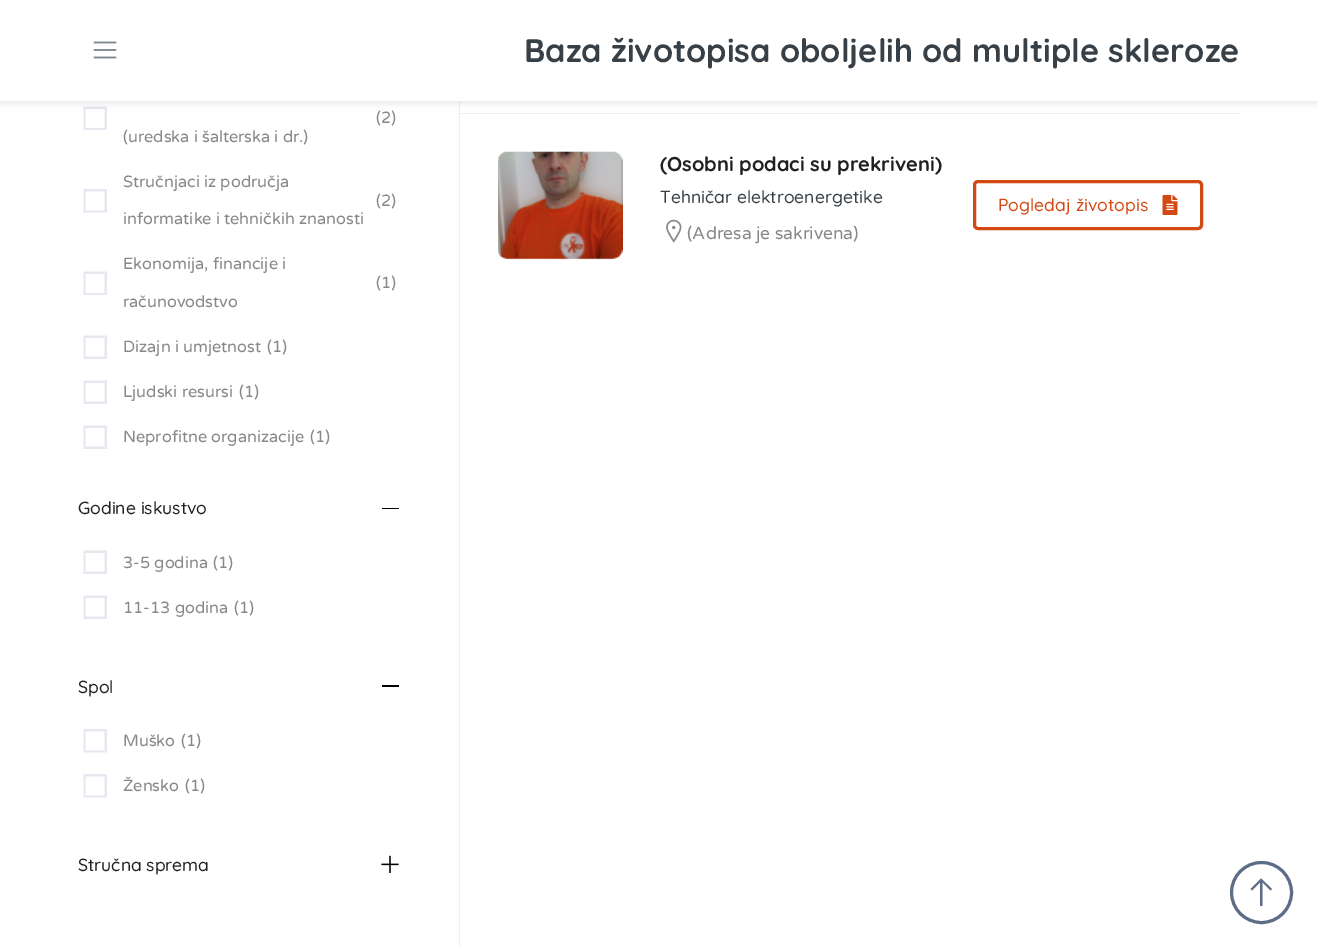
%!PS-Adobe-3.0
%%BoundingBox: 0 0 1317 948
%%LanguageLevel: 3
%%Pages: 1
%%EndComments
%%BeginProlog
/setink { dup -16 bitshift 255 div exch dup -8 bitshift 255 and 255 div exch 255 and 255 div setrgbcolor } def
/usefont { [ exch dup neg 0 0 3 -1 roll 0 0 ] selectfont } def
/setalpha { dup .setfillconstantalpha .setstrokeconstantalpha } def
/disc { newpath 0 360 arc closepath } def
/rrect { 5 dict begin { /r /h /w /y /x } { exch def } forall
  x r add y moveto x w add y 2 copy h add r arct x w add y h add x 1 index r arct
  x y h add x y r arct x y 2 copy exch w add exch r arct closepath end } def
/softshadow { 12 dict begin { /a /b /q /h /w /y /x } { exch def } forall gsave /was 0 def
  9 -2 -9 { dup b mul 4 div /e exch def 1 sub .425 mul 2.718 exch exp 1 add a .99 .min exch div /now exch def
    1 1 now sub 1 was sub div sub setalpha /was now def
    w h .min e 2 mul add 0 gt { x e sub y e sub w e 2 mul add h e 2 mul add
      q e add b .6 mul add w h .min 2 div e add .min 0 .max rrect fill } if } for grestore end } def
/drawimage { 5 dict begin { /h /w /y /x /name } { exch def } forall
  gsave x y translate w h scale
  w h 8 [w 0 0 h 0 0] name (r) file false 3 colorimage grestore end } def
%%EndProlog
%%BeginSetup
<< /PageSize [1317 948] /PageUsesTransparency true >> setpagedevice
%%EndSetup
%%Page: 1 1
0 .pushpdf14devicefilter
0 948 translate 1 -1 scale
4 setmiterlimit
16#FFFFFF setink
0 0 1317 948 rectfill
16#E6E8EF setink
83.5 106.5 moveto 107 106.5 lineto 107 130 lineto 83.5 130 lineto closepath 85.5 109 moveto 85.5 128 lineto 104.5 128 lineto 104.5 109 lineto closepath fill
16#EDEFF7 setink
459 101 1 847 rectfill
460 113 780 1 rectfill
16#202020 setink
0 3 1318 101 0 3 0.1 softshadow
16#FFFFFF setink
0 0 1317 101 rectfill
(img1.raw) 93 41 24 18 drawimage
/Quicksand-Bold 32.5 usefont
16#384047 setink
524 62 moveto (Baza životopisa oboljelih od multiple skleroze) show
/VarelaRound-Regular 16.25 usefont
16#888888 setink
[
    [(\(2\)) 376 123]
    [(\(uredska i šalterska i dr.\)) 123 142]
    [(Stručnjaci iz područja) 123 187]
] { aload pop moveto show } forall
16#E6E8EF setink
83.5 189 moveto 107 189 lineto 107 212.5 lineto 83.5 212.5 lineto closepath 85.5 191.5 moveto 85.5 210.5 lineto 104.5 210.5 lineto 104.5 191.5 lineto closepath fill
16#888888 setink
[
    [(\(2\)) 376 206]
    [(informatike i tehničkih znanosti) 123 224]
    [(Ekonomija, financije i) 123 269]
] { aload pop moveto show } forall
16#E6E8EF setink
83.5 271.5 moveto 107 271.5 lineto 107 295 lineto 83.5 295 lineto closepath 85.5 274 moveto 85.5 293 lineto 104.5 293 lineto 104.5 274 lineto closepath fill
16#888888 setink
376 288 moveto (\(1\)) show
123 307 moveto (računovodstvo) show
16#E6E8EF setink
83.5 335.5 moveto 107 335.5 lineto 107 359 lineto 83.5 359 lineto closepath 85.5 338 moveto 85.5 356.5 lineto 104.5 356.5 lineto 104.5 338 lineto closepath fill
16#888888 setink
123 352 moveto (Dizajn i umjetnost) show
267 352 moveto (\(1\)) show
16#E6E8EF setink
83.5 380.5 moveto 107 380.5 lineto 107 404 lineto 83.5 404 lineto closepath 85.5 383 moveto 85.5 401.5 lineto 104.5 401.5 lineto 104.5 383 lineto closepath fill
16#888888 setink
123 397 moveto (Ljudski resursi) show
239 397 moveto (\(1\)) show
16#E6E8EF setink
83.5 425.5 moveto 107 425.5 lineto 107 449 lineto 83.5 449 lineto closepath 85.5 428 moveto 85.5 446.5 lineto 104.5 446.5 lineto 104.5 428 lineto closepath fill
16#888888 setink
123 442 moveto (Neprofitne organizacije) show
310 442 moveto (\(1\)) show
/Quicksand-Medium 17.5 usefont
16#202020 setink
78 514 moveto (Godine iskustvo) show
16#000000 setink
382 508 17 1 rectfill
16#E6E8EF setink
83.5 550.5 moveto 107 550.5 lineto 107 574 lineto 83.5 574 lineto closepath 85.5 553 moveto 85.5 571.5 lineto 104.5 571.5 lineto 104.5 553 lineto closepath fill
/VarelaRound-Regular 16.25 usefont
16#888888 setink
123 568 moveto (3-5 godina) show
213 568 moveto (\(1\)) show
16#E6E8EF setink
83.5 595.5 moveto 107 595.5 lineto 107 619 lineto 83.5 619 lineto closepath 85.5 598 moveto 85.5 616.5 lineto 104.5 616.5 lineto 104.5 598 lineto closepath fill
16#888888 setink
123 613 moveto (11-13 godina) show
234 613 moveto (\(1\)) show
/Quicksand-Medium 17.5 usefont
16#202020 setink
78 693 moveto (Spol) show
16#000000 setink
382 685 17 2 rectfill
16#E6E8EF setink
83.5 729 moveto 107 729 lineto 107 752.5 lineto 83.5 752.5 lineto closepath 85.5 731.5 moveto 85.5 750.5 lineto 104.5 750.5 lineto 104.5 731.5 lineto closepath fill
/VarelaRound-Regular 16.25 usefont
16#888888 setink
123 746 moveto (Muško) show
181 746 moveto (\(1\)) show
16#E6E8EF setink
83.5 774 moveto 107 774 lineto 107 797.5 lineto 83.5 797.5 lineto closepath 85.5 776.5 moveto 85.5 795.5 lineto 104.5 795.5 lineto 104.5 776.5 lineto closepath fill
16#888888 setink
123 791 moveto (Žensko) show
185 791 moveto (\(1\)) show
/Quicksand-Medium 17.5 usefont
16#202020 setink
78 871 moveto (Stručna sprema) show
(img2.raw) 381 855 18 18 drawimage
(img3.raw) 498 151 125 109 drawimage
/Quicksand-Bold 20 usefont
660 171 moveto (\(Osobni podaci su prekriveni\)) show
/Quicksand-Medium 17.5 usefont
16#384047 setink
660 203 moveto (Tehničar elektroenergetike) show
(img4.raw) 666 219 16 24 drawimage
/VarelaRound-Regular 17.5 usefont
16#888888 setink
687 239 moveto (\(Adresa je sakrivena\)) show
16#D24913 setink
3 setlinewidth
974.5 181.5 227 47 3.5 rrect stroke
/Quicksand-Medium 17.5 usefont
998 211 moveto (Pogledaj životopis) show
(img5.raw) 1162 195 16 20 drawimage
16#5D6D88 setink
1261.5 892.5 30 disc stroke
1261 878.5 moveto 1272 889 lineto 1270.5 890.5 lineto 1262.5 882.5 lineto 1262.5 906 lineto 1260 906 lineto 1260 882.5 lineto 1252 890.5 lineto 1250.5 889 lineto closepath fill
.poppdf14devicefilter showpage
%%EOF
